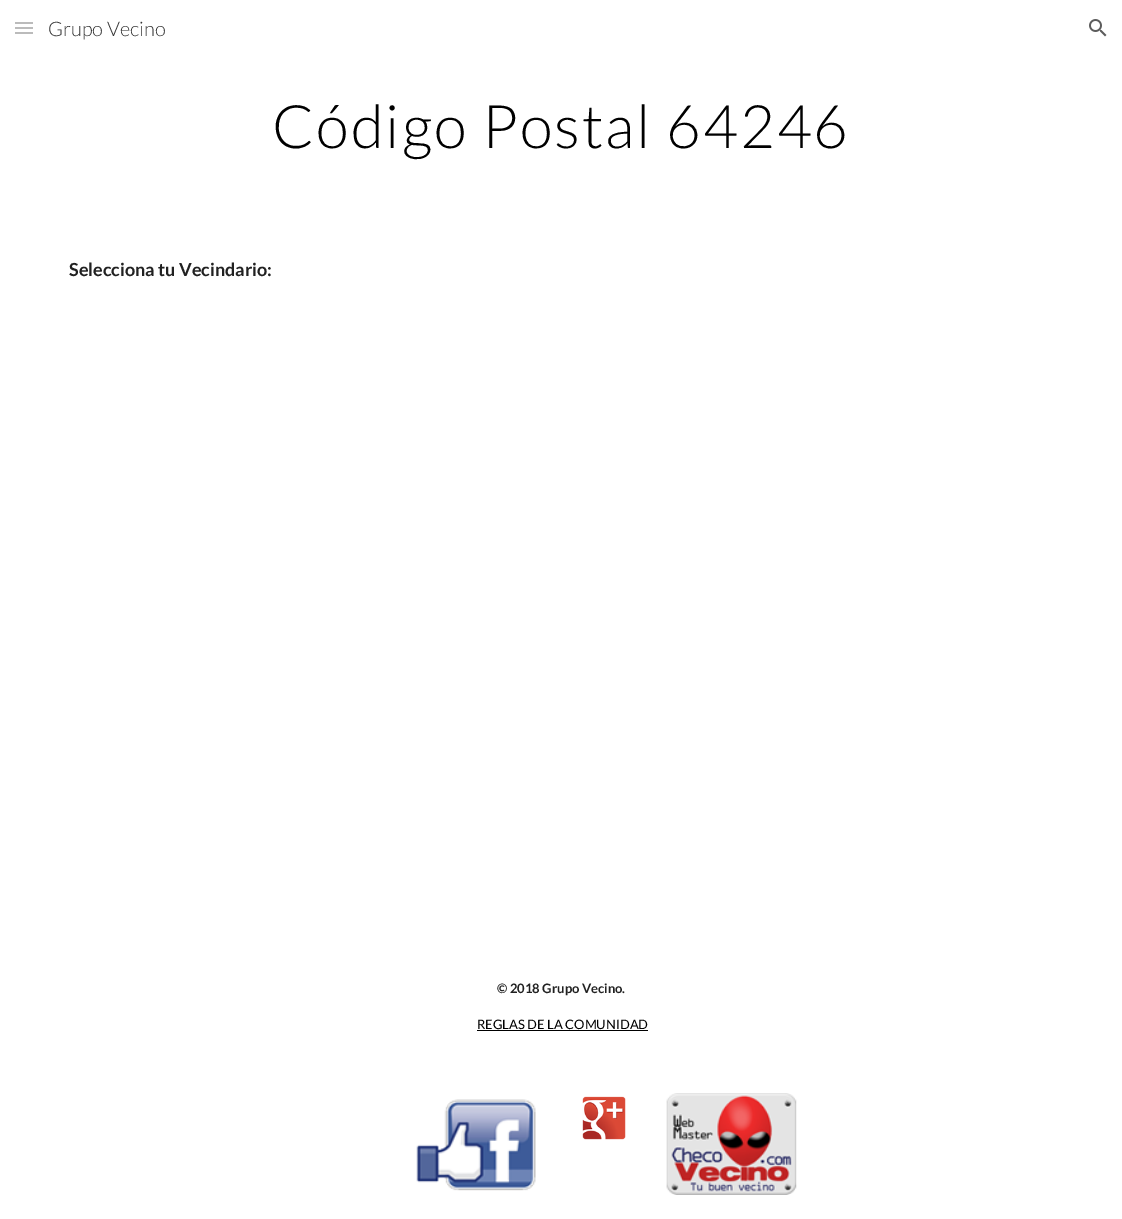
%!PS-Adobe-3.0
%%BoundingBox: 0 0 1122 1219
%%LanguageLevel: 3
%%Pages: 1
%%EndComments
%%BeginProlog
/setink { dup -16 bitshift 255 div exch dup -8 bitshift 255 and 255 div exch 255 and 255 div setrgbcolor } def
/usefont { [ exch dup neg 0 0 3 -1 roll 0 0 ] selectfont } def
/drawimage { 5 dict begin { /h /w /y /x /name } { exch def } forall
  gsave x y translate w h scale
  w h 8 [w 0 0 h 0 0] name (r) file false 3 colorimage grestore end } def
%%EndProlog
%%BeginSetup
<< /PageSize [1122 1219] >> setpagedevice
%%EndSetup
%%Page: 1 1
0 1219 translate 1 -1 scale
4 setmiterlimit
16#FFFFFF setink
0 0 1122 1219 rectfill
[
    [15 22 18 2 16#BBBBBB]
    [15 27 18 2 16#BBBBBB]
    [15 32 18 2 16#BBBBBB]
] { aload pop setink rectfill } forall
/Lato-Light 20 usefont
16#333333 setink
48 36 moveto (Grupo Vecino) show
(img1.raw) 1089 19 18 18 drawimage
/Lato-Light 60 usefont
16#000000 setink
272 148 moveto 2 0 (Código Postal 64246) ashow
/Lato-Bold 18 usefont
16#212121 setink
69 276 moveto (Selecciona tu Vecindario:) show
/Lato-Bold 13 usefont
497 993 moveto (© 2018 Grupo Vecino.) show
/Lato-Regular 13 usefont
16#000000 setink
477 1029 moveto (REGLAS DE LA COMUNIDAD) show
477 1030 171 1 rectfill
(img2.raw) 416 1099 120 92 drawimage
(img3.raw) 582 1096 44 44 drawimage
(img4.raw) 666 1093 131 102 drawimage
showpage
%%EOF
